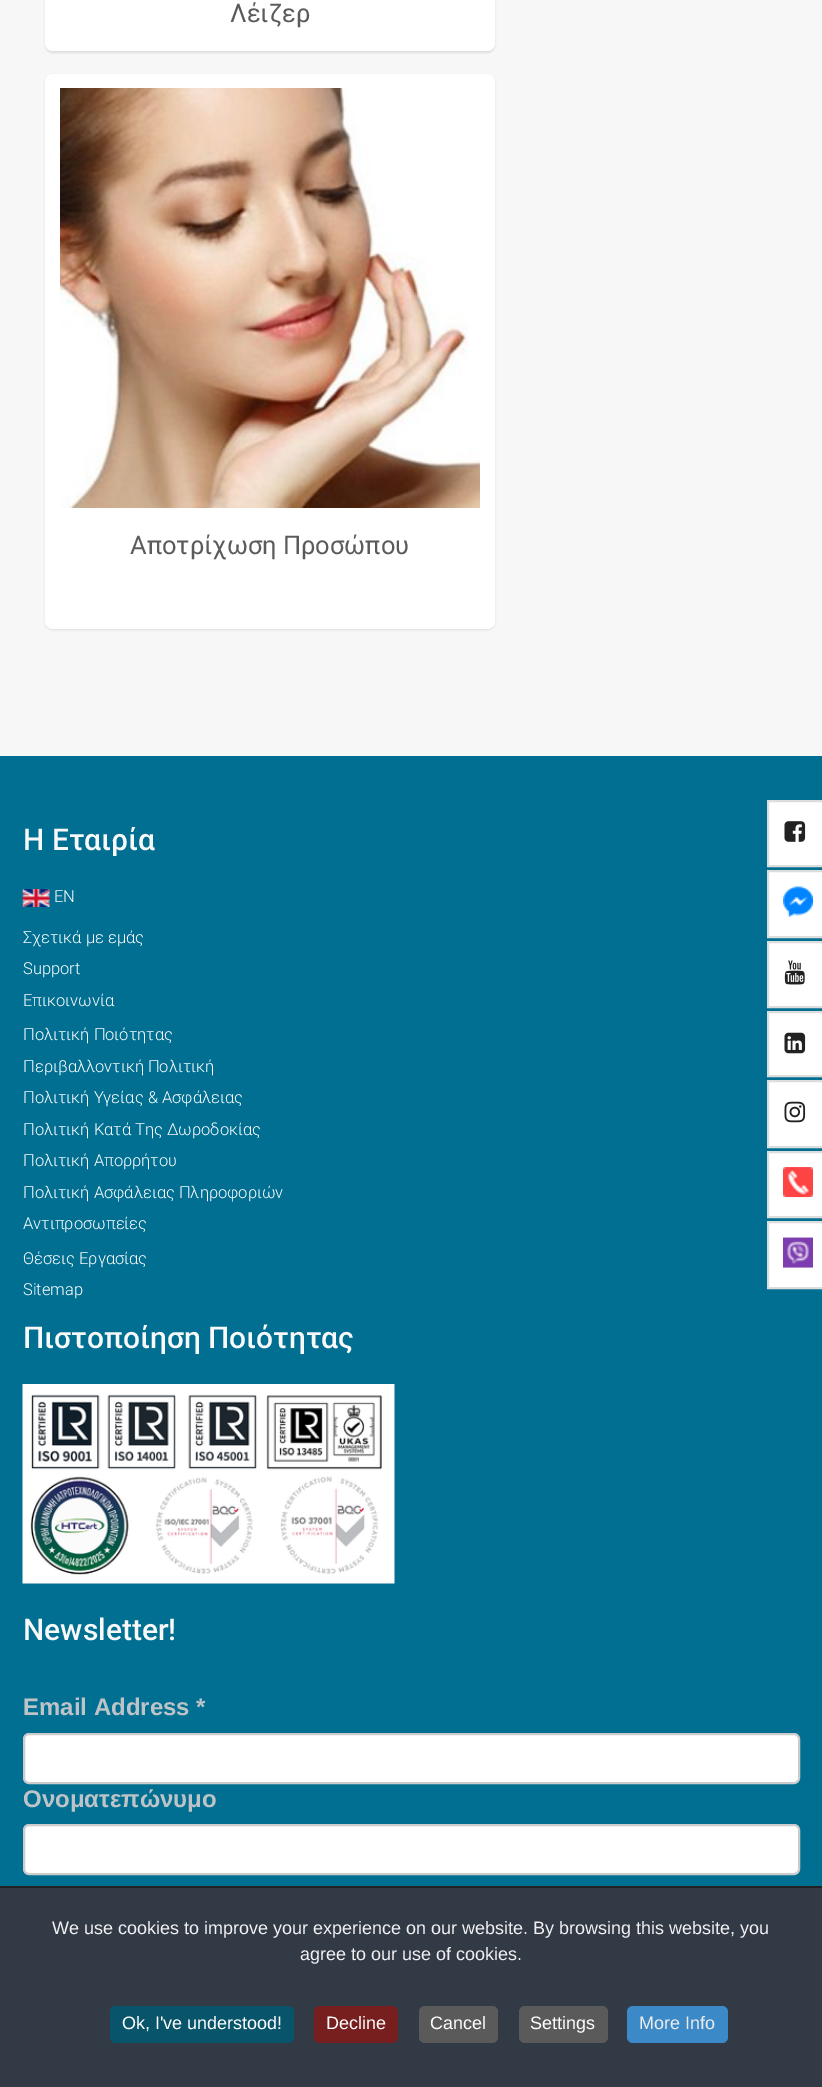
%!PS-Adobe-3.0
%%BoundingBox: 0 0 822 2087
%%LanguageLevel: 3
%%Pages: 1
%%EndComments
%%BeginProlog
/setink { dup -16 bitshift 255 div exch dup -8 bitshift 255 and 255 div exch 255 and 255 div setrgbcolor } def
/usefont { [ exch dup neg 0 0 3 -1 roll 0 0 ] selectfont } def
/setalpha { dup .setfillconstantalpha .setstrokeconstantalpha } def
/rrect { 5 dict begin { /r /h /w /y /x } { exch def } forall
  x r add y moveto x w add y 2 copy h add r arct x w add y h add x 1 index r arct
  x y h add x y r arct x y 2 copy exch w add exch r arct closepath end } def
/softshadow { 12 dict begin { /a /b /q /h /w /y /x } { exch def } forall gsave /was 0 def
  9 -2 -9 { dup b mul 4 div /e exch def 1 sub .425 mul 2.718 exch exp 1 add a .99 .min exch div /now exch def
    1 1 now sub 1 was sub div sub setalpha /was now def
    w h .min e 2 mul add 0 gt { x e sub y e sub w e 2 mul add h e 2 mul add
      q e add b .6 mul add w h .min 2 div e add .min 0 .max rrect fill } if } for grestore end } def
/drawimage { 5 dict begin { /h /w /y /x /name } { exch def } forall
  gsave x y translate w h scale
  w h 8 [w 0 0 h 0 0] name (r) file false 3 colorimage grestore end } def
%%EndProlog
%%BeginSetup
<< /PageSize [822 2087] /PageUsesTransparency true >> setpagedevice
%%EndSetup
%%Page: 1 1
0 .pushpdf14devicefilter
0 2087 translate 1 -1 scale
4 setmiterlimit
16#016F92 setink
0 0 822 2087 rectfill
16#F7F7F7 setink
0 0 822 756 rectfill
16#000000 setink
45 -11 450 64 8 1 0.1 softshadow
16#FFFFFF setink
45 -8 450 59 8 rrect fill
/Roboto-Regular 25.5 usefont
16#5B5B5B setink
230 22 moveto (Λέιζερ) show
16#000000 setink
45 75 450 555 8 1 0.1 softshadow
16#FFFFFF setink
45 74 450 555 8 rrect fill
(img1.raw) 60 88 420 420 drawimage
16#5B5B5B setink
130 554 moveto (Αποτρίχωση Προσώπου) show
16#FFFFFF setink
768 801 moveto 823 801 lineto 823 866 lineto 768 866 lineto closepath gsave fill grestore
16#DDDDDD setink
2 setlinewidth
stroke
(img2.raw) 784 821 22 21 drawimage
16#FFFFFF setink
768 871 moveto 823 871 lineto 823 937 lineto 768 937 lineto closepath gsave fill grestore
16#DDDDDD setink
stroke
(img3.raw) 783 886 30 31 drawimage
16#FFFFFF setink
768 942 moveto 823 942 lineto 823 1007 lineto 768 1007 lineto closepath gsave fill grestore
16#DDDDDD setink
stroke
(img4.raw) 784 960 21 25 drawimage
16#FFFFFF setink
768 1012 moveto 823 1012 lineto 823 1076 lineto 768 1076 lineto closepath gsave fill grestore
16#DDDDDD setink
stroke
(img5.raw) 784 1032 22 22 drawimage
16#FFFFFF setink
768 1081 moveto 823 1081 lineto 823 1147 lineto 768 1147 lineto closepath gsave fill grestore
16#DDDDDD setink
stroke
(img6.raw) 784 1101 22 22 drawimage
16#FFFFFF setink
768 1152 moveto 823 1152 lineto 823 1217 lineto 768 1217 lineto closepath gsave fill grestore
16#DDDDDD setink
stroke
(img7.raw) 783 1167 30 31 drawimage
16#FFFFFF setink
768 1222 moveto 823 1222 lineto 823 1288 lineto 768 1288 lineto closepath gsave fill grestore
16#DDDDDD setink
stroke
(img8.raw) 783 1237 30 31 drawimage
/Roboto-Medium 30 usefont
16#F9F9F9 setink
23 850 moveto (Η Εταιρία) show
(img9.raw) 22 889 28 18 drawimage
/Roboto-Light 16.5 usefont
16#FFFFFF setink
[
    [(EN) 54 902]
    [(Σχετικά με εμάς) 23 943]
    [(Support) 23 974]
    [(Επικοινωνία) 23 1006]
    [(Πολιτική Ποιότητας) 23 1040]
    [(Περιβαλλοντική Πολιτική) 23 1072]
    [(Πολιτική Υγείας & Ασφάλειας) 23 1103]
    [(Πολιτική Κατά Της Δωροδοκίας) 23 1135]
    [(Πολιτική Απορρήτου) 23 1166]
    [(Πολιτική Ασφάλειας Πληροφοριών) 23 1198]
    [(Αντιπροσωπείες) 23 1229]
    [(Θέσεις Εργασίας) 23 1264]
    [(Sitemap) 23 1295]
] { aload pop moveto show } forall
/Roboto-Medium 30 usefont
16#F9F9F9 setink
23 1348 moveto (Πιστοποίηση Ποιότητας) show
(img10.raw) 22 1384 373 200 drawimage
23 1640 moveto (Newsletter!) show
/LiberationSans-Bold 24 usefont
16#BDC3C7 setink
23 1715 moveto (Email Address *) show
16#FFFFFF setink
24 1734 775 49 5 rrect gsave fill grestore
16#CCCCCC setink
stroke
16#BDC3C7 setink
23 1807 moveto (Ονοματεπώνυμο) show
16#FFFFFF setink
24 1825 775 49 5 rrect gsave fill grestore
16#CCCCCC setink
stroke
16#323A45 setink
0 1888 822 199 rectfill
16#202226 setink
0 1886 822 2 rectfill
/LiberationSans-Regular 18 usefont
16#F1F1F3 setink
52 1934 moveto (We use cookies to improve your experience on our website. By browsing this website, you) show
300 1960 moveto (agree to our use of cookies.) show
16#08546B setink
110 2006 184 37 6 rrect fill
16#FFFFFF setink
122 2029 moveto (Ok, I've understood!) show
16#771F1F setink
314 2006 84 37 6 rrect fill
16#FFFFFF setink
326 2029 moveto (Decline) show
16#5A5A5A setink
419 2006 79 37 6 rrect fill
16#FFFFFF setink
430 2029 moveto (Cancel) show
16#5A5A5A setink
519 2006 89 37 6 rrect fill
16#FFFFFF setink
530 2029 moveto (Settings) show
16#3B89C7 setink
627 2006 101 37 6 rrect fill
16#EBEBEB setink
639 2029 moveto (More Info) show
.poppdf14devicefilter showpage
%%EOF
